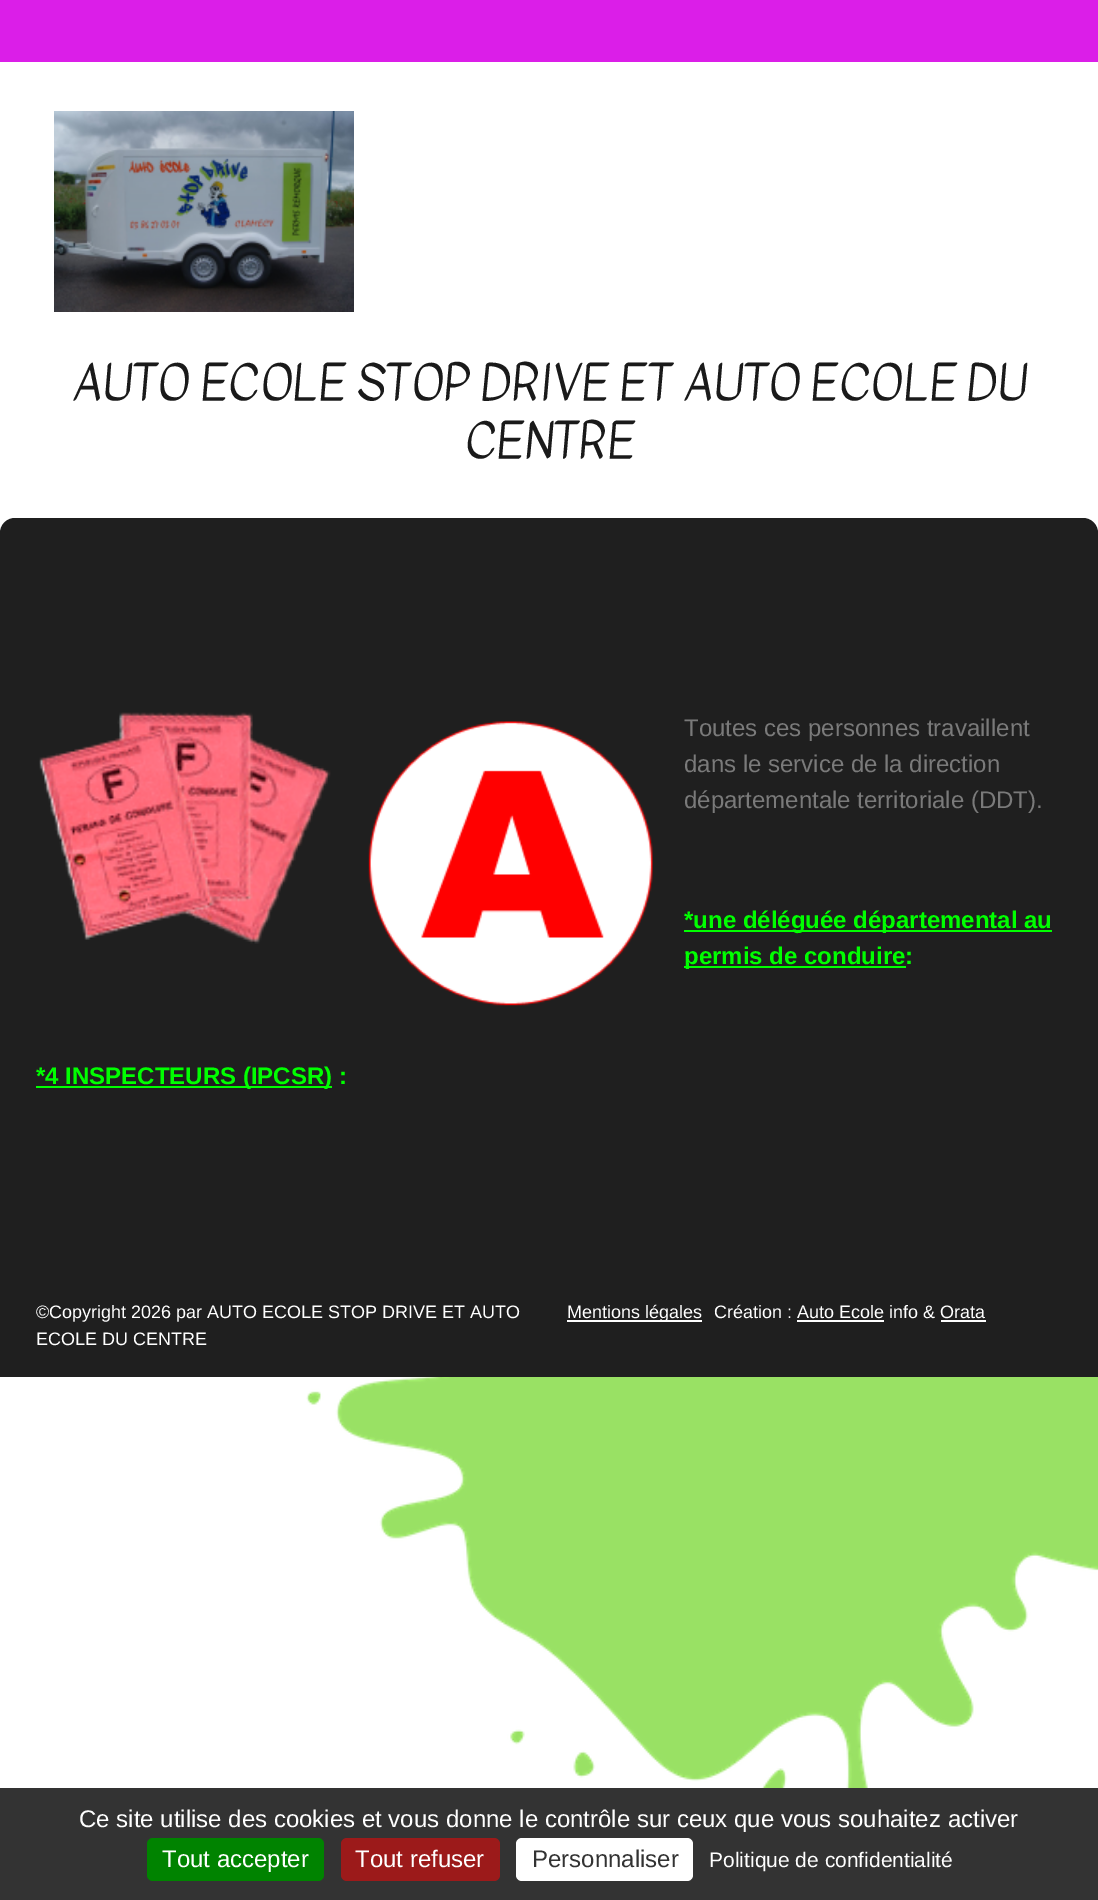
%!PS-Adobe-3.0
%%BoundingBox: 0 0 1098 1900
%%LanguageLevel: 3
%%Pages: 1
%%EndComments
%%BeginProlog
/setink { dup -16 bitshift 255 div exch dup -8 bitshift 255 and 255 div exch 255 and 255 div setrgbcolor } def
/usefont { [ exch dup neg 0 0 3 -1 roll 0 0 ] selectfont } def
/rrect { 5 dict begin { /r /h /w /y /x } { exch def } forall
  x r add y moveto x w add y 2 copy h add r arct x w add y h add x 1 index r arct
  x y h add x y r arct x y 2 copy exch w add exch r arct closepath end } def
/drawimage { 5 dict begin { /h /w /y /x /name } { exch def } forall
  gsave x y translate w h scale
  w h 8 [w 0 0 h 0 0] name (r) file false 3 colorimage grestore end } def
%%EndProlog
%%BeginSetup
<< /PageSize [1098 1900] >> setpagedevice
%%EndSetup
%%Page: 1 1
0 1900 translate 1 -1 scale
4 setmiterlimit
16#FFFFFF setink
0 0 1098 1900 rectfill
(img1.raw) 306 1377 792 411 drawimage
16#DB1EE8 setink
0 0 1098 62 rectfill
(img2.raw) 54 111 300 201 drawimage
/Kavivanar-Regular 48 usefont
16#1A1A1A setink
71 399 moveto (AUTO ECOLE STOP DRIVE ET AUTO ECOLE DU) show
464 457 moveto (CENTRE) show
16#1F1F1F setink
0 518 1098 859 15 rrect fill
(img3.raw) 39 712 292 232 drawimage
/LiberationSans-Regular 24 usefont
16#7A7A7A setink
[
    [(Toutes ces personnes travaillent) 684 736]
    [(dans le service de la direction) 684 772]
    [(départementale territoriale \(DDT\).) 684 808]
] { aload pop moveto show } forall
16#00FF00 setink
684 930 368 2 rectfill
/LiberationSans-Bold 24 usefont
684 928 moveto (*une déléguée départemental au) show
684 966 222 2 rectfill
684 964 moveto (permis de conduire:) show
36 1086 296 2 rectfill
36 1084 moveto (*4 INSPECTEURS \(IPCSR\) :) show
(img4.raw) 368 721 285 285 drawimage
16#1F1F1F setink
0 1362 1098 15 rectfill
/LiberationSans-Regular 18 usefont
16#FFFFFF setink
36 1318 moveto (©Copyright 2026 par AUTO ECOLE STOP DRIVE ET AUTO) show
36 1345 moveto (ECOLE DU CENTRE) show
567 1320 135 2 rectfill
567 1318 moveto (Mentions légales) show
714 1318 moveto (Création : Auto Ecole info & Orata) show
[
    [797 1320 87 2 16#FFFFFF]
    [941 1320 45 2 16#FFFFFF]
    [0 1788 1098 112 16#333333]
] { aload pop setink rectfill } forall
/LiberationSans-Regular 24 usefont
16#FFFFFF setink
79 1827 moveto (Ce site utilise des cookies et vous donne le contrôle sur ceux que vous souhaitez activer) show
16#008300 setink
147 1838 177 43 6 rrect fill
16#FFFFFF setink
162 1867 moveto (Tout accepter) show
16#9C1A1A setink
341 1838 159 43 6 rrect fill
16#FFFFFF setink
355 1867 moveto (Tout refuser) show
516 1838 177 43 6 rrect fill
16#333333 setink
532 1867 moveto (Personnaliser) show
/LiberationSans-Regular 21 usefont
16#FFFFFF setink
709 1867 moveto (Politique de confidentialité) show
showpage
%%EOF
